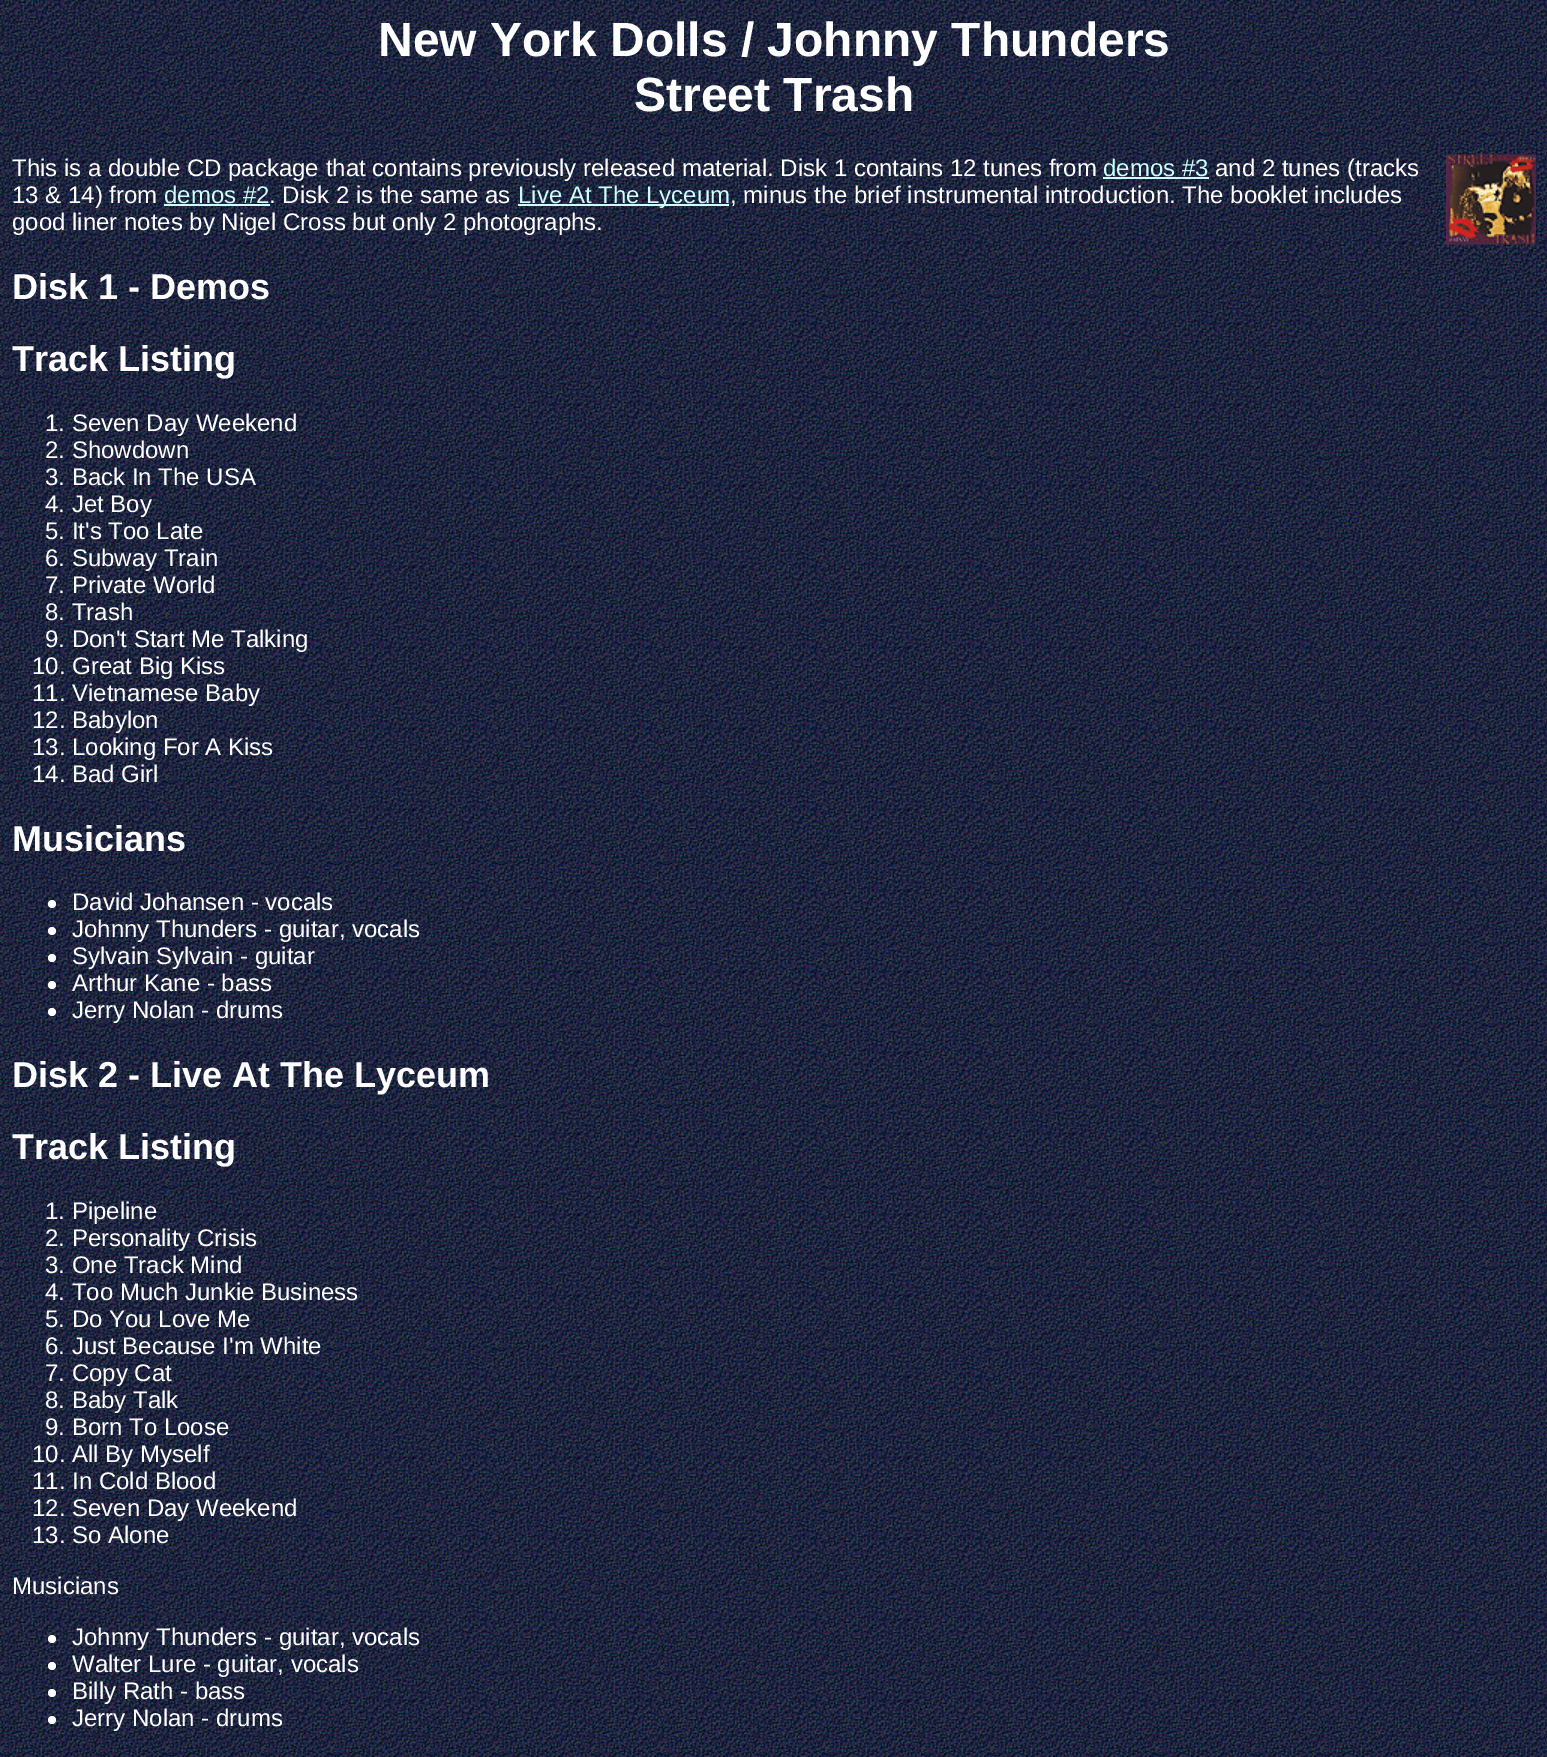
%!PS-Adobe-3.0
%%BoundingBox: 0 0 1547 1757
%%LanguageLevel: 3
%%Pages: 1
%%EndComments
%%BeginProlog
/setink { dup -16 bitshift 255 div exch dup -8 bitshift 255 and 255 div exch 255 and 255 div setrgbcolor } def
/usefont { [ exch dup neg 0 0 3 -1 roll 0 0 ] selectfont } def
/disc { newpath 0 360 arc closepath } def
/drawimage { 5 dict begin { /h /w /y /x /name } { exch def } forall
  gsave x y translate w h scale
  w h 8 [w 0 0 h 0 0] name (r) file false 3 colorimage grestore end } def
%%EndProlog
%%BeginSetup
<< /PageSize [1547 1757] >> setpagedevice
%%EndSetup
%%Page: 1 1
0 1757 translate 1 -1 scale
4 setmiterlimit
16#FFFFFF setink
0 0 1547 1757 rectfill
(img1.raw) 0 0 1547 1757 drawimage
/LiberationSans-Bold 48 usefont
378 56 moveto (New York Dolls / Johnny Thunders) show
634 111 moveto (Street Trash) show
/LiberationSans-Regular 24 usefont
12 176 moveto (This is a double CD package that contains previously released material. Disk 1 contains 12 tunes from) show
16#CCFFFF setink
1103 176 moveto (demos #3) show
1103 177 106 2 rectfill
16#FFFFFF setink
1215 176 moveto (and 2 tunes \(tracks) show
12 203 moveto (13 & 14\) from) show
16#CCFFFF setink
164 203 moveto (demos #2) show
164 204 106 2 rectfill
16#FFFFFF setink
269 203 moveto (. Disk 2 is the same as) show
16#CCFFFF setink
518 204 211 2 rectfill
518 203 moveto (Live At The Lyceum) show
16#FFFFFF setink
730 203 moveto (, minus the brief instrumental introduction. The booklet includes) show
12 230 moveto (good liner notes by Nigel Cross but only 2 photographs.) show
(img2.raw) 1446 154 90 91 drawimage
/LiberationSans-Bold 36 usefont
12 299 moveto (Disk 1 - Demos) show
12 371 moveto (Track Listing) show
/LiberationSans-Regular 24 usefont
[
    [(1. Seven Day Weekend) 45 431]
    [(2. Showdown) 45 458]
    [(3. Back In The USA) 45 485]
    [(4. Jet Boy) 45 512]
    [(5. It's Too Late) 45 539]
    [(6. Subway Train) 45 566]
    [(7. Private World) 45 593]
    [(8. Trash) 45 620]
    [(9. Don't Start Me Talking) 45 647]
    [(10. Great Big Kiss) 32 674]
    [(11. Vietnamese Baby) 32 701]
    [(12. Babylon) 32 728]
    [(13. Looking For A Kiss) 32 755]
    [(14. Bad Girl) 32 782]
] { aload pop moveto show } forall
/LiberationSans-Bold 36 usefont
12 851 moveto (Musicians) show
52 904 4 disc fill
/LiberationSans-Regular 24 usefont
72 910 moveto (David Johansen - vocals) show
52 931 4 disc fill
72 937 moveto (Johnny Thunders - guitar, vocals) show
52 958 4 disc fill
72 964 moveto (Sylvain Sylvain - guitar) show
52 985 4 disc fill
72 991 moveto (Arthur Kane - bass) show
52 1012 4 disc fill
72 1018 moveto (Jerry Nolan - drums) show
/LiberationSans-Bold 36 usefont
12 1087 moveto (Disk 2 - Live At The Lyceum) show
12 1159 moveto (Track Listing) show
/LiberationSans-Regular 24 usefont
[
    [(1. Pipeline) 45 1219]
    [(2. Personality Crisis) 45 1246]
    [(3. One Track Mind) 45 1273]
    [(4. Too Much Junkie Business) 45 1300]
    [(5. Do You Love Me) 45 1327]
    [(6. Just Because I'm White) 45 1354]
    [(7. Copy Cat) 45 1381]
    [(8. Baby Talk) 45 1408]
    [(9. Born To Loose) 45 1435]
    [(10. All By Myself) 32 1462]
    [(11. In Cold Blood) 32 1489]
    [(12. Seven Day Weekend) 32 1516]
    [(13. So Alone) 32 1543]
    [(Musicians) 12 1594]
] { aload pop moveto show } forall
52 1639 4 disc fill
72 1645 moveto (Johnny Thunders - guitar, vocals) show
52 1666 4 disc fill
72 1672 moveto (Walter Lure - guitar, vocals) show
52 1693 4 disc fill
72 1699 moveto (Billy Rath - bass) show
52 1720 4 disc fill
72 1726 moveto (Jerry Nolan - drums) show
showpage
%%EOF
